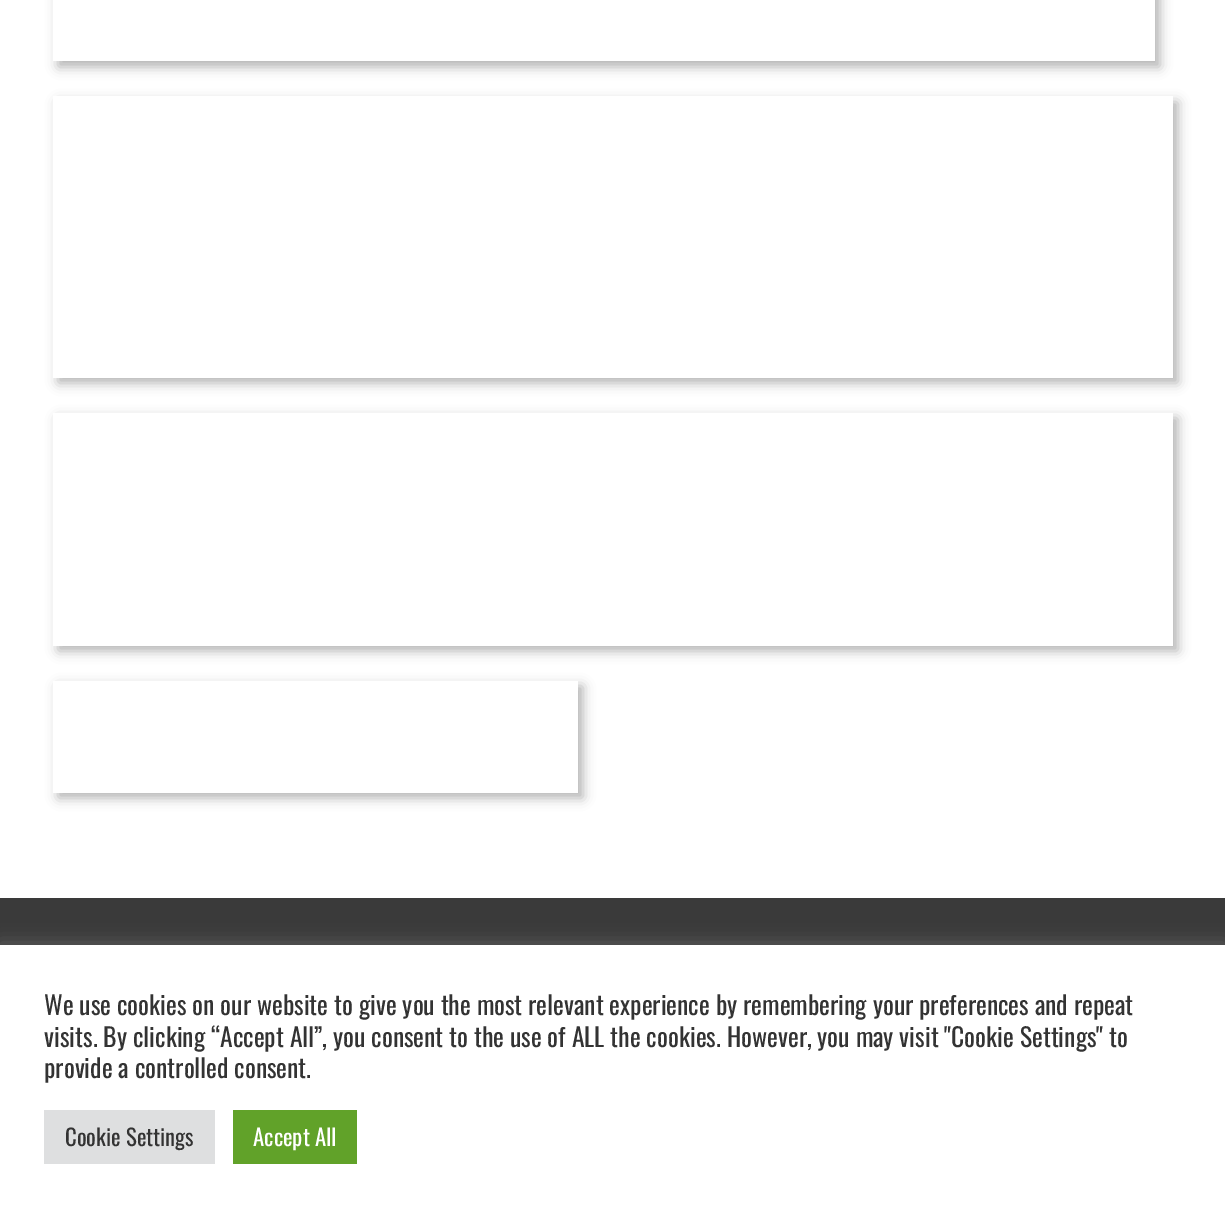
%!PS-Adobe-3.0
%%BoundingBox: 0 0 1225 1215
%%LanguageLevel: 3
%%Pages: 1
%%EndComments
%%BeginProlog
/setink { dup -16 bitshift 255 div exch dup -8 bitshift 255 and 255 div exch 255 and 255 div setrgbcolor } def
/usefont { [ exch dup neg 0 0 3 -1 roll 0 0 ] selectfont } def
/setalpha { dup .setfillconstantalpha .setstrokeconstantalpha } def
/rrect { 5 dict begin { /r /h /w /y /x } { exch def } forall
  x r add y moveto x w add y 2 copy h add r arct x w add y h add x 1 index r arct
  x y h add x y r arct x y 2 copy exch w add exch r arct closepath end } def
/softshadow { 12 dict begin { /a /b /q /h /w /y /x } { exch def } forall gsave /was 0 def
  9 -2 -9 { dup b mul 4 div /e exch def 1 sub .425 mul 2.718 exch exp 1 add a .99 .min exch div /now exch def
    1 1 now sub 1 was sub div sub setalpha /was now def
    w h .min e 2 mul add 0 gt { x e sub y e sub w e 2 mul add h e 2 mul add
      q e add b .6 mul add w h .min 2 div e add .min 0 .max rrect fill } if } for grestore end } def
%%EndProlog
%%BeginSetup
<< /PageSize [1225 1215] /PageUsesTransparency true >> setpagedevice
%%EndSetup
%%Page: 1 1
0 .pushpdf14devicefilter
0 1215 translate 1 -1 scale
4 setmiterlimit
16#FFFFFF setink
0 0 1225 1215 rectfill
gsave
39 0 moveto 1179 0 lineto 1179 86 lineto 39 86 lineto closepath 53 -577 moveto 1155 -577 lineto 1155 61 lineto 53 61 lineto closepath eoclip newpath
16#000000 setink
58 -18 1102 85 0 6 0.3 softshadow
grestore
gsave
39 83 moveto 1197 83 lineto 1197 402 lineto 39 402 lineto closepath 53 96 moveto 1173 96 lineto 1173 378 lineto 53 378 lineto closepath eoclip newpath
16#000000 setink
58 102 1120 281 0 6 0.3 softshadow
grestore
gsave
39 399 moveto 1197 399 lineto 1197 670 lineto 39 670 lineto closepath 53 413 moveto 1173 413 lineto 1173 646 lineto 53 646 lineto closepath eoclip newpath
16#000000 setink
58 418 1120 233 0 6 0.3 softshadow
grestore
gsave
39 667 moveto 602 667 lineto 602 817 lineto 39 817 lineto closepath 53 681 moveto 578 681 lineto 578 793 lineto 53 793 lineto closepath eoclip newpath
16#000000 setink
58 686 525 112 0 6 0.3 softshadow
grestore
16#3A3A3A setink
0 898 1225 47 rectfill
16#ACABAB setink
0 943 1225 272 0 9 0.3 softshadow
16#FFFFFF setink
0 945 1225 270 rectfill
/Oswald-Regular 25.65 usefont
16#333333 setink
[
    [(We use cookies on our website to give you the most relevant experience by remembering your preferences and repeat) 44 1015]
    [(visits. By clicking “Accept All”, you consent to the use of ALL the cookies. However, you may visit "Cookie Settings" to) 44 1047]
    [(provide a controlled consent.) 44 1078]
] { aload pop moveto show } forall
16#DEDFE0 setink
44 1110 171 54 rectfill
/Oswald-Regular 22.75 usefont
16#333333 setink
65 1146 moveto (Cookie Settings) show
16#61A229 setink
233 1110 124 54 rectfill
16#FFFFFF setink
253 1146 moveto (Accept All) show
.poppdf14devicefilter showpage
%%EOF
